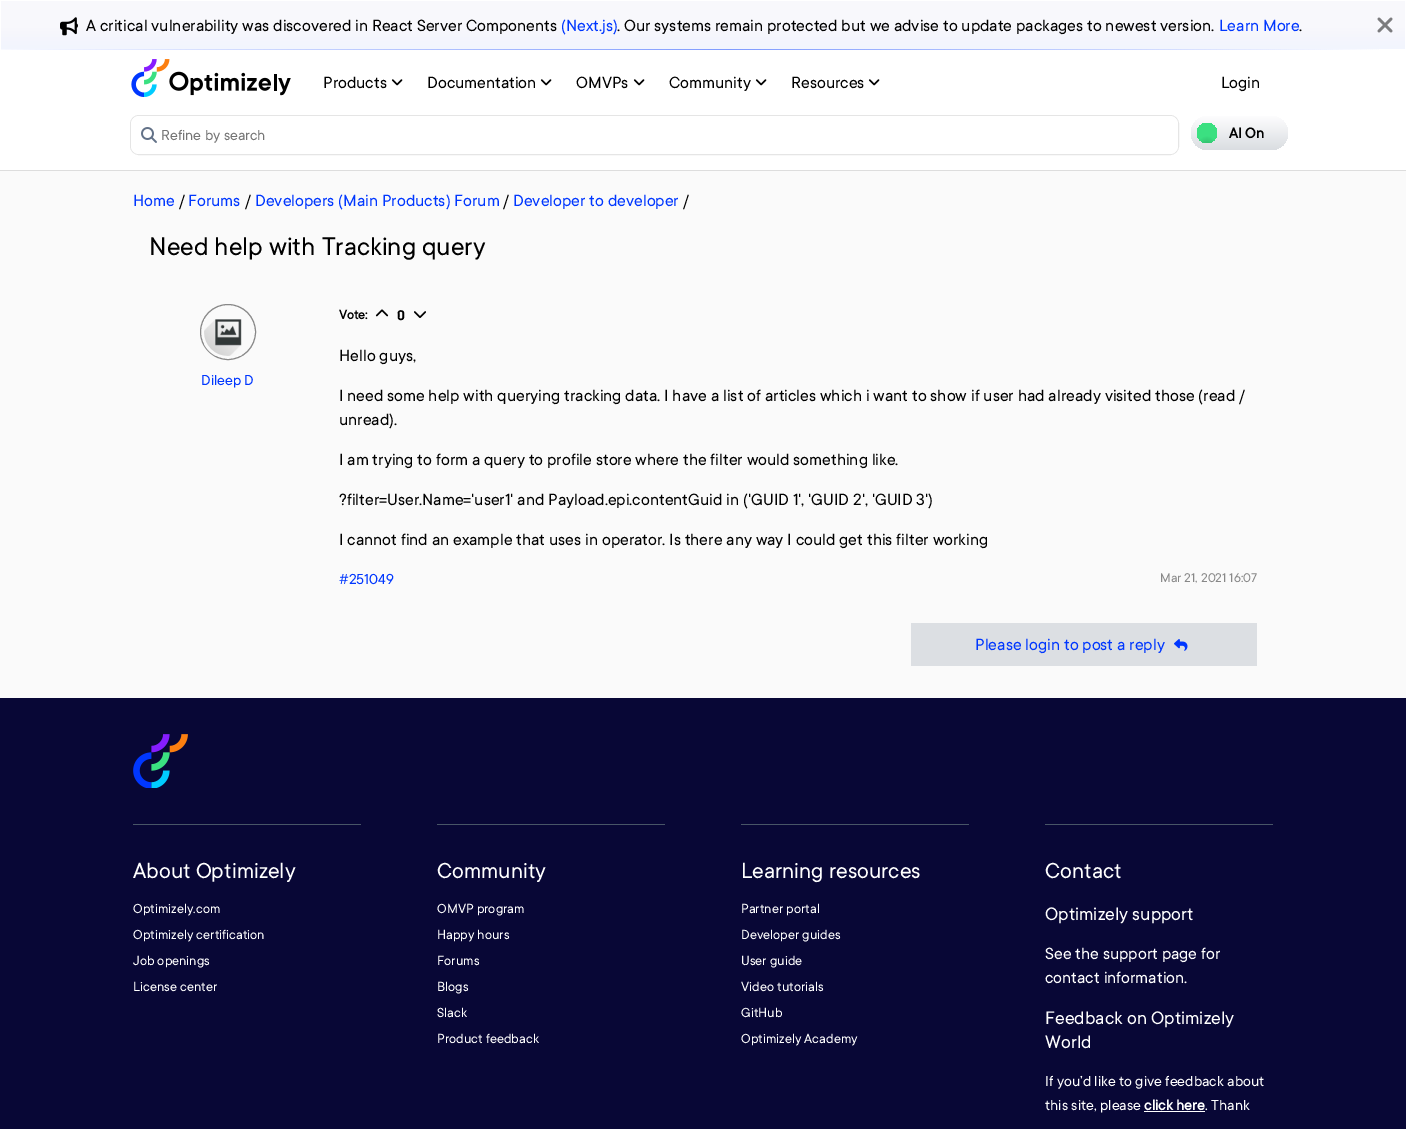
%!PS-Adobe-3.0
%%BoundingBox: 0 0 1406 1129
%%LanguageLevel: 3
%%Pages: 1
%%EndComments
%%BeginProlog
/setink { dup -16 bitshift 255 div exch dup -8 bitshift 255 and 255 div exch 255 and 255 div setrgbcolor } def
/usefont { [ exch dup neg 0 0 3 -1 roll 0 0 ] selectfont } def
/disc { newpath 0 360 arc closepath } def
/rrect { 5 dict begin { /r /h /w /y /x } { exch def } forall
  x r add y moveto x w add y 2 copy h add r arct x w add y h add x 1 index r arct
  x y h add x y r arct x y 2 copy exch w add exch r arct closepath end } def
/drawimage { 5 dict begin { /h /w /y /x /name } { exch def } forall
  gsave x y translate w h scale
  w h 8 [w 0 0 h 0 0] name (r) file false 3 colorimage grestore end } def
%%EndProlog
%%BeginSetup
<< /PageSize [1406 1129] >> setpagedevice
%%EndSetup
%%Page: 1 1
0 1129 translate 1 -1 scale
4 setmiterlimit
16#FAFAFA setink
0 0 1406 1129 rectfill
16#FFFFFF setink
0 0 1406 170 rectfill
(img1.raw) 1 49 1378 1 drawimage
gsave 1 1 moveto 1405 1 lineto 1405 49 lineto 1 49 lineto closepath clip newpath
<< /ShadingType 2 /ColorSpace /DeviceRGB /Coords [703 0.9 703 59] /Extend [true true] /Function << /FunctionType 3 /Domain [0 1] /Functions [<< /FunctionType 2 /Domain [0 1] /C0 [0.973 0.973 0.988] /C1 [0.973 0.973 0.988] /N 1 >> << /FunctionType 2 /Domain [0 1] /C0 [0.973 0.973 0.988] /C1 [0.941 0.953 1] /N 1 >>] /Bounds [0.42] /Encode [0 1 0 1] >> >> shfill grestore
(img2.raw) 60 17 18 19 drawimage
/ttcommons-Regular 18 usefont
16#000000 setink
86 31 moveto (A critical vulnerability was discovered in React Server Components) show
16#0037FF setink
561 31 moveto (\(Next.js\)) show
16#000000 setink
617 31 moveto (. Our systems remain protected but we advise to update packages to newest version.) show
16#0037FF setink
1219 31 moveto (Learn More) show
16#000000 setink
1299 31 moveto (.) show
(img3.raw) 1377 17 16 16 drawimage
16#DDDDDD setink
0 170 1406 1 rectfill
(img4.raw) 131 59 160 38 drawimage
16#000000 setink
323 88 moveto (Products) show
(img5.raw) 391 79 12 7 drawimage
427 88 moveto (Documentation) show
(img5.raw) 540 79 12 7 drawimage
576 88 moveto (OMVPs) show
(img5.raw) 633 79 12 7 drawimage
669 88 moveto (Community) show
(img5.raw) 755 79 12 7 drawimage
791 88 moveto (Resources) show
(img5.raw) 868 79 12 7 drawimage
1221 88 moveto (Login) show
16#E5E5E5 setink
130.5 115.5 1048 39 8.5 rrect stroke
16#FFFFFF setink
131 116 1047 38 8 rrect fill
(img6.raw) 141 127 16 16 drawimage
/ttcommons-Regular 16 usefont
16#757575 setink
161 140 moveto (Refine by search) show
gsave 1191 116 97 34 17 rrect clip newpath
<< /ShadingType 2 /ColorSpace /DeviceRGB /Coords [1240 116 1240 150] /Extend [true true] /Function << /FunctionType 2 /Domain [0 1] /C0 [0.992 0.992 0.996] /C1 [0.855 0.867 0.882] /N 1 >> >> shfill grestore
gsave 1207 133 10 disc clip newpath 1207 146 translate 23 23 scale
<< /ShadingType 3 /ColorSpace /DeviceRGB /Coords [0 0 0 0 0 1] /Extend [true true] /Function << /FunctionType 3 /Domain [0 1] /Functions [<< /FunctionType 2 /Domain [0 1] /C0 [0.184 0.702 0.404] /C1 [0.231 0.878 0.506] /N 1 >> << /FunctionType 2 /Domain [0 1] /C0 [0.231 0.878 0.506] /C1 [0.231 0.878 0.506] /N 1 >>] /Bounds [0.44] /Encode [0 1 0 1] >> >> shfill grestore
/ttcommons-Bold 16 usefont
16#000000 setink
1229 138 moveto (AI On) show
/ttcommons-Regular 18 usefont
16#0037FF setink
133 206 moveto (Home) show
16#000000 setink
179 206 moveto (/) show
16#0037FF setink
188 206 moveto (Forums) show
16#000000 setink
245 206 moveto (/) show
16#0037FF setink
255 206 moveto (Developers \(Main Products\) Forum) show
16#000000 setink
503 206 moveto (/) show
16#0037FF setink
513 206 moveto (Developer to developer) show
16#000000 setink
683 206 moveto (/) show
/ttcommons-Regular 28 usefont
149 255 moveto (Need help with Tracking query) show
16#888888 setink
228 332 27.5 disc stroke
(img7.raw) 204 319 38 37 drawimage
/ttcommons-Regular 16 usefont
16#0037FF setink
201 385 moveto (Dileep D) show
/ttcommons-Bold 14 usefont
16#000000 setink
339 319 moveto (Vote:) show
(img8.raw) 375 309 14 8 drawimage
/Barlow-Bold 14 usefont
397 320 moveto (0) show
(img9.raw) 414 311 12 7 drawimage
/ttcommons-Regular 18 usefont
[
    [(Hello guys,) 339 361]
    [(I need some help with querying tracking data. I have a list of articles which i want to show if user had already visited those \(read /) 339 401]
    [(unread\).) 339 425]
    [(I am trying to form a query to profile store where the filter would something like.) 339 465]
    [(?filter=User.Name='user1' and Payload.epi.contentGuid in \('GUID 1', 'GUID 2', 'GUID 3'\)) 339 505]
    [(I cannot find an example that uses in operator. Is there any way I could get this filter working) 339 545]
] { aload pop moveto show } forall
/ttcommons-Regular 16 usefont
16#0037FF setink
339 584 moveto (#251049) show
/ttcommons-Regular 14 usefont
16#888888 setink
1160 582 moveto (Mar 21, 2021 16:07) show
16#DCDFE3 setink
911 623 346 43 rectfill
/ttcommons-Regular 18 usefont
16#0037FF setink
975 650 moveto (Please login to post a reply) show
(img10.raw) 1174 639 14 12 drawimage
16#080736 setink
0 698 1406 431 rectfill
(img11.raw) 133 734 55 54 drawimage
16#485567 setink
133 824 228 1 rectfill
/ttcommons-Regular 24 usefont
16#FFFFFF setink
133 878 moveto (About Optimizely) show
/ttcommons-Regular 14.5 usefont
[
    [(Optimizely.com) 133 913]
    [(Optimizely certification) 133 939]
    [(Job openings) 133 965]
    [(License center) 133 991]
] { aload pop moveto show } forall
16#485567 setink
437 824 228 1 rectfill
/ttcommons-Regular 24 usefont
16#FFFFFF setink
437 878 moveto (Community) show
/ttcommons-Regular 14.5 usefont
[
    [(OMVP program) 437 913]
    [(Happy hours) 437 939]
    [(Forums) 437 965]
    [(Blogs) 437 991]
    [(Slack) 437 1017]
    [(Product feedback) 437 1043]
] { aload pop moveto show } forall
16#485567 setink
741 824 228 1 rectfill
/ttcommons-Regular 24 usefont
16#FFFFFF setink
741 878 moveto (Learning resources) show
/ttcommons-Regular 14.5 usefont
[
    [(Partner portal) 741 913]
    [(Developer guides) 741 939]
    [(User guide) 741 965]
    [(Video tutorials) 741 991]
    [(GitHub) 741 1017]
    [(Optimizely Academy) 741 1043]
] { aload pop moveto show } forall
16#485567 setink
1045 824 228 1 rectfill
/ttcommons-Regular 24 usefont
16#FFFFFF setink
1045 878 moveto (Contact) show
/ttcommons-Regular 20 usefont
1045 920 moveto (Optimizely support) show
/ttcommons-Regular 18 usefont
1045 959 moveto (See the support page for) show
1045 983 moveto (contact information.) show
/ttcommons-Regular 20 usefont
1045 1024 moveto (Feedback on Optimizely) show
1045 1048 moveto (World) show
/ttcommons-Regular 16 usefont
1045 1086 moveto (If you’d like to give feedback about) show
1045 1110 moveto (this site, please) show
/ttcommons-Bold 16 usefont
1144 1110 moveto (click here) show
1144 1111 61 1 rectfill
/ttcommons-Regular 16 usefont
1205 1110 moveto (. Thank) show
showpage
%%EOF
